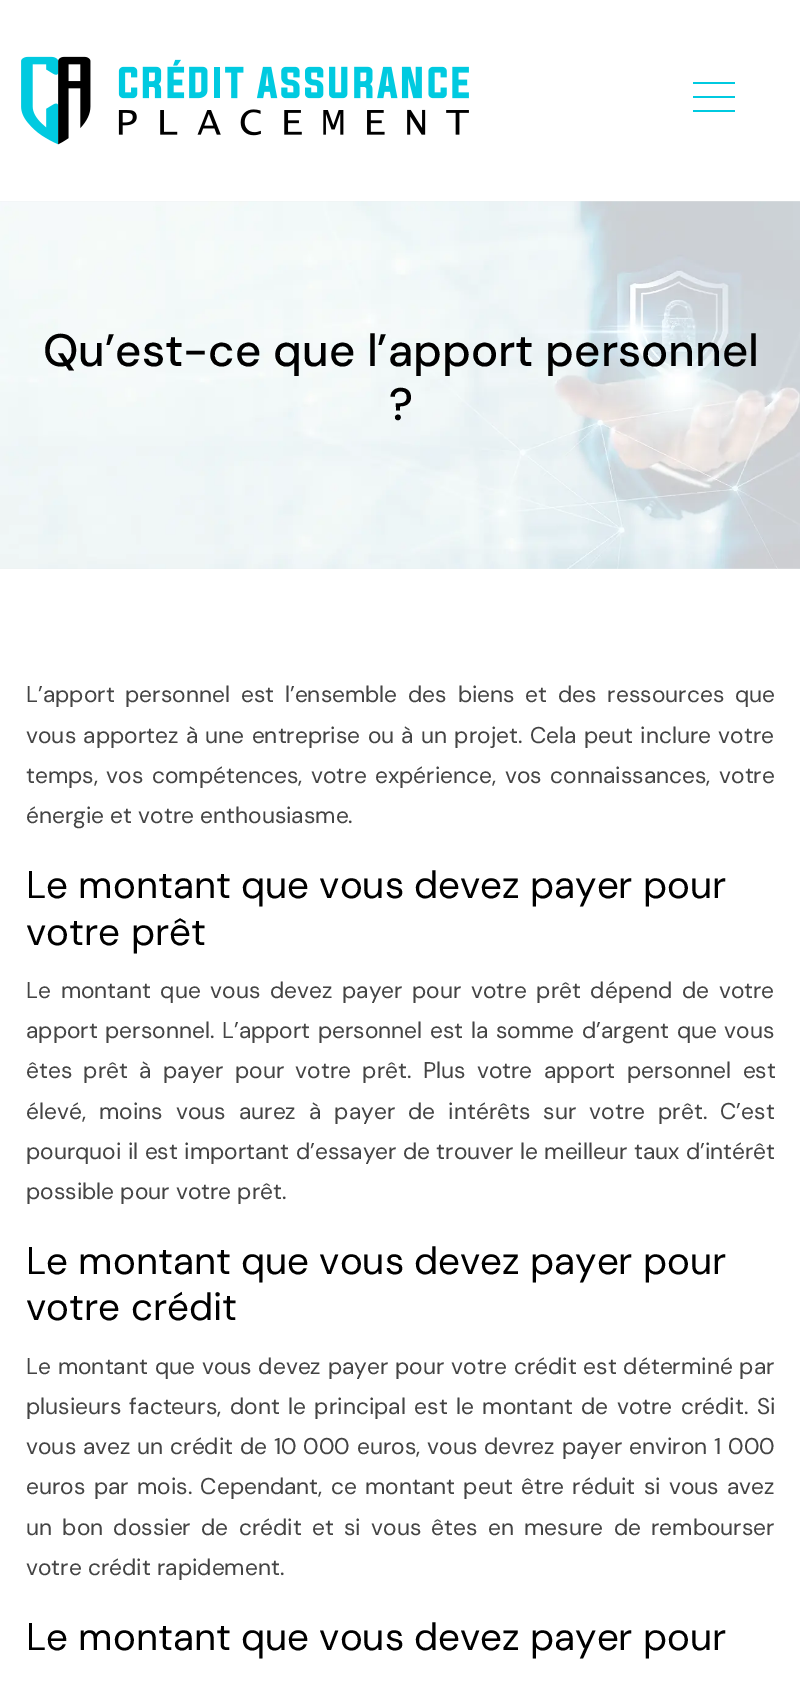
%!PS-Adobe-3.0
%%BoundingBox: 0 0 800 1688
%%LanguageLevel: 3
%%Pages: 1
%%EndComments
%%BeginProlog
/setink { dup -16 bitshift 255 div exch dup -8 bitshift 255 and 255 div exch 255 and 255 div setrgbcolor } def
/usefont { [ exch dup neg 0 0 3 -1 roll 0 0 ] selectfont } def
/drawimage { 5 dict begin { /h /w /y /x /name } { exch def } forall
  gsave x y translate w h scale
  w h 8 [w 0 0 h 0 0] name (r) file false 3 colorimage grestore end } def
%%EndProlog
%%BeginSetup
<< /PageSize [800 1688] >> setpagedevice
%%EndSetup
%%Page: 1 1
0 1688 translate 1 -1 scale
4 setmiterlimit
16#FFFFFF setink
0 0 800 1688 rectfill
(img1.raw) 21 56 448 89 drawimage
[
    [693 82 42 2 16#00CAE0]
    [693 96 42 2 16#00CAE0]
    [693 110 42 2 16#00CAE0]
] { aload pop setink rectfill } forall
(img2.raw) 0 201 800 368 drawimage
/DMSans-Medium 45.5 usefont
16#000000 setink
43 366 moveto (Qu’est-ce que l’apport personnel) show
389 420 moveto (?) show
/DMSans-Regular 22.75 usefont
16#444444 setink
26 702 moveto 4.75 0 32 (L’apport personnel est l’ensemble des biens et des ressources que) widthshow
26 743 moveto 1.25 0 32 (vous apportez à une entreprise ou à un projet. Cela peut inclure votre) widthshow
26 783 moveto 2.5 0 32 (temps, vos compétences, votre expérience, vos connaissances, votre) widthshow
26 823 moveto (énergie et votre enthousiasme.) show
/DMSans-Regular 38.5 usefont
16#000000 setink
26 898 moveto (Le montant que vous devez payer pour) show
26 945 moveto (votre prêt) show
/DMSans-Regular 22.75 usefont
16#444444 setink
26 998 moveto 3.6 0 32 (Le montant que vous devez payer pour votre prêt dépend de votre) widthshow
26 1038 moveto 1.5 0 32 (apport personnel. L’apport personnel est la somme d’argent que vous) widthshow
26 1078 moveto 5.25 0 32 (êtes prêt à payer pour votre prêt. Plus votre apport personnel est) widthshow
26 1119 moveto 7 0 32 (élevé, moins vous aurez à payer de intérêts sur votre prêt. C’est) widthshow
26 1159 moveto 0.25 0 32 (pourquoi il est important d’essayer de trouver le meilleur taux d’intérêt) widthshow
26 1199 moveto (possible pour votre prêt.) show
/DMSans-Regular 38.5 usefont
16#000000 setink
26 1274 moveto (Le montant que vous devez payer pour) show
26 1320 moveto (votre crédit) show
/DMSans-Regular 22.75 usefont
16#444444 setink
26 1374 moveto 0.75 0 32 (Le montant que vous devez payer pour votre crédit est déterminé par) widthshow
26 1414 moveto 2.4 0 32 (plusieurs facteurs, dont le principal est le montant de votre crédit. Si) widthshow
26 1454 moveto 0.75 0 32 (vous avez un crédit de 10 000 euros, vous devrez payer environ 1 000) widthshow
26 1494 moveto 2.25 0 32 (euros par mois. Cependant, ce montant peut être réduit si vous avez) widthshow
26 1535 moveto 4.25 0 32 (un bon dossier de crédit et si vous êtes en mesure de rembourser) widthshow
26 1575 moveto (votre crédit rapidement.) show
/DMSans-Regular 38.5 usefont
16#000000 setink
26 1650 moveto (Le montant que vous devez payer pour) show
showpage
%%EOF
